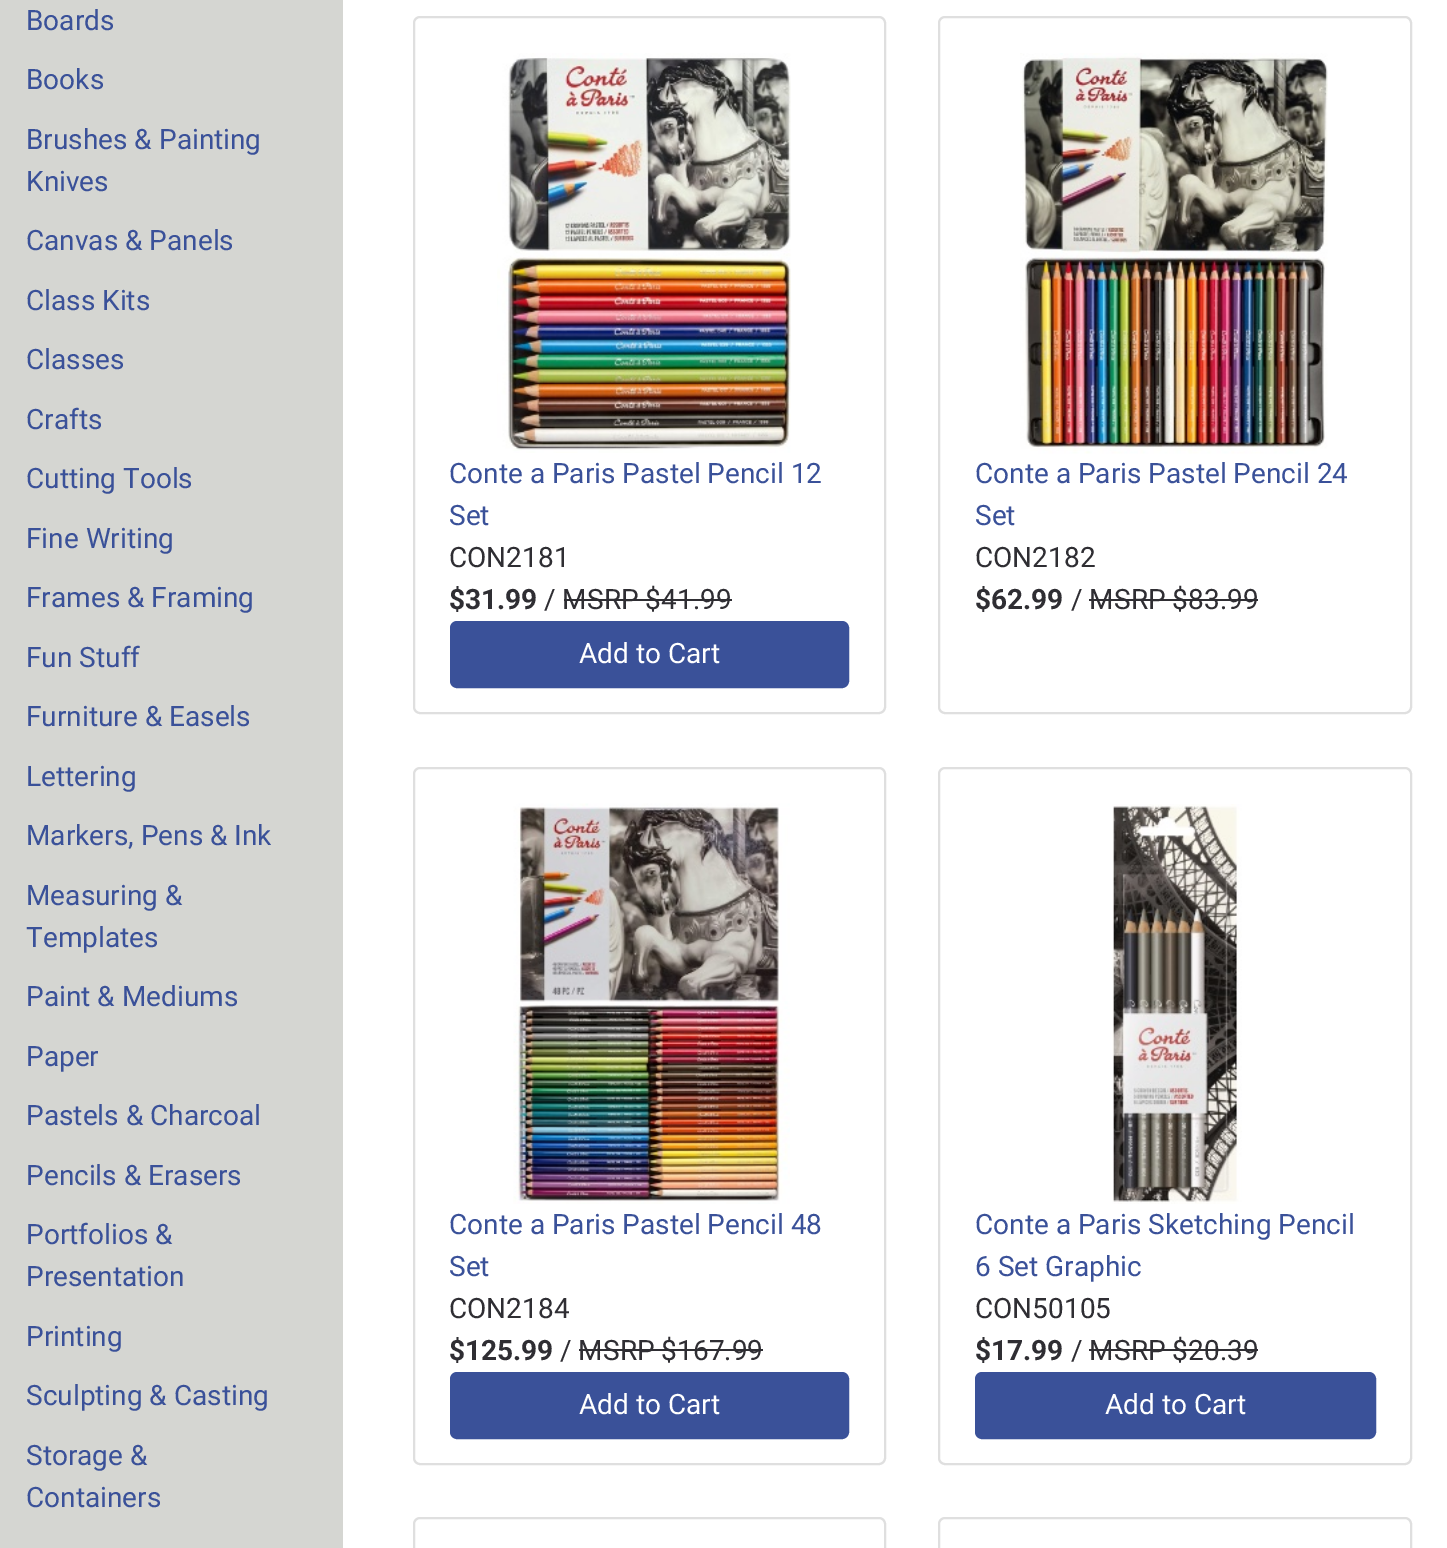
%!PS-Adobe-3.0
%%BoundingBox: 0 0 1447 1548
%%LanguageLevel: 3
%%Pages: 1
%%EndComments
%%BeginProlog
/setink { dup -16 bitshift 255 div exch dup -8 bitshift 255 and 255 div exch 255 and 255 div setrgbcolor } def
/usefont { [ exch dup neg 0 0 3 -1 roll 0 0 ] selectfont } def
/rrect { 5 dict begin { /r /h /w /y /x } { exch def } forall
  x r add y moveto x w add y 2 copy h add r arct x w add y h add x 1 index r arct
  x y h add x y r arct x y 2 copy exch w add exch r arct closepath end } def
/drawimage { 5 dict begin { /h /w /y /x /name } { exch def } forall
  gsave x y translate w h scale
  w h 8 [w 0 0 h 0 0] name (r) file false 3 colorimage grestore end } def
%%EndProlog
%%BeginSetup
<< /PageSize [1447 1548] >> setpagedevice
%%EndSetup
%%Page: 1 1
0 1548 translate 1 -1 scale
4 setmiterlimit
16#FFFFFF setink
0 0 1447 1548 rectfill
16#D5D6D2 setink
0 0 343 1548 rectfill
/Roboto-Regular 28 usefont
16#3A5199 setink
[
    [(Boards) 26 30]
    [(Books) 26 89]
    [(Brushes & Painting) 26 149]
    [(Knives) 26 191]
    [(Canvas & Panels) 26 250]
    [(Class Kits) 26 310]
    [(Classes) 26 369]
    [(Crafts) 26 429]
    [(Cutting Tools) 26 488]
    [(Fine Writing) 26 548]
    [(Frames & Framing) 26 607]
    [(Fun Stuff) 26 667]
    [(Furniture & Easels) 26 726]
    [(Lettering) 26 786]
    [(Markers, Pens & Ink) 26 845]
    [(Measuring &) 26 905]
    [(Templates) 26 947]
    [(Paint & Mediums) 26 1006]
    [(Paper) 26 1066]
    [(Pastels & Charcoal) 26 1125]
    [(Pencils & Erasers) 26 1185]
    [(Portfolios &) 26 1244]
    [(Presentation) 26 1286]
    [(Printing) 26 1346]
    [(Sculpting & Casting) 26 1405]
    [(Storage &) 26 1465]
    [(Containers) 26 1507]
] { aload pop moveto show } forall
16#DFDFDF setink
2 setlinewidth
414 17 471 696 6 rrect stroke
(img1.raw) 497 53 294 400 drawimage
16#3A5199 setink
449 483 moveto (Conte a Paris Pastel Pencil 12) show
449 525 moveto (Set) show
16#2F2E33 setink
449 567 moveto (CON2181) show
/Roboto-Bold 28 usefont
449 609 moveto ($31.99) show
/Roboto-Regular 28 usefont
544 609 moveto (/ MSRP $41.99) show
564 599 168 2 rectfill
16#3A5199 setink
451 622 397 65 6 rrect gsave fill grestore
stroke
16#FFFFFF setink
579 663 moveto (Add to Cart) show
16#DFDFDF setink
939 17 472 696 6 rrect stroke
(img2.raw) 1020 53 308 401 drawimage
16#3A5199 setink
975 483 moveto (Conte a Paris Pastel Pencil 24) show
975 525 moveto (Set) show
16#2F2E33 setink
975 567 moveto (CON2182) show
/Roboto-Bold 28 usefont
975 609 moveto ($62.99) show
/Roboto-Regular 28 usefont
1071 609 moveto (/ MSRP $83.99) show
1089 599 169 2 rectfill
16#DFDFDF setink
414 768 471 696 6 rrect stroke
(img3.raw) 513 803 277 401 drawimage
16#3A5199 setink
449 1234 moveto (Conte a Paris Pastel Pencil 48) show
449 1276 moveto (Set) show
16#2F2E33 setink
449 1318 moveto (CON2184) show
/Roboto-Bold 28 usefont
449 1360 moveto ($125.99) show
/Roboto-Regular 28 usefont
560 1360 moveto (/ MSRP $167.99) show
579 1349 184 2 rectfill
16#3A5199 setink
451 1373 397 65 6 rrect gsave fill grestore
stroke
16#FFFFFF setink
579 1414 moveto (Add to Cart) show
16#DFDFDF setink
939 768 472 696 6 rrect stroke
(img4.raw) 1112 804 130 400 drawimage
16#3A5199 setink
975 1234 moveto (Conte a Paris Sketching Pencil) show
975 1276 moveto (6 Set Graphic) show
16#2F2E33 setink
975 1318 moveto (CON50105) show
/Roboto-Bold 28 usefont
975 1360 moveto ($17.99) show
/Roboto-Regular 28 usefont
1071 1360 moveto (/ MSRP $20.39) show
1089 1349 169 2 rectfill
16#3A5199 setink
976 1373 399 65 6 rrect gsave fill grestore
stroke
16#FFFFFF setink
1105 1414 moveto (Add to Cart) show
16#DFDFDF setink
414 1518 471 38 6 rrect stroke
939 1518 472 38 6 rrect stroke
showpage
%%EOF
